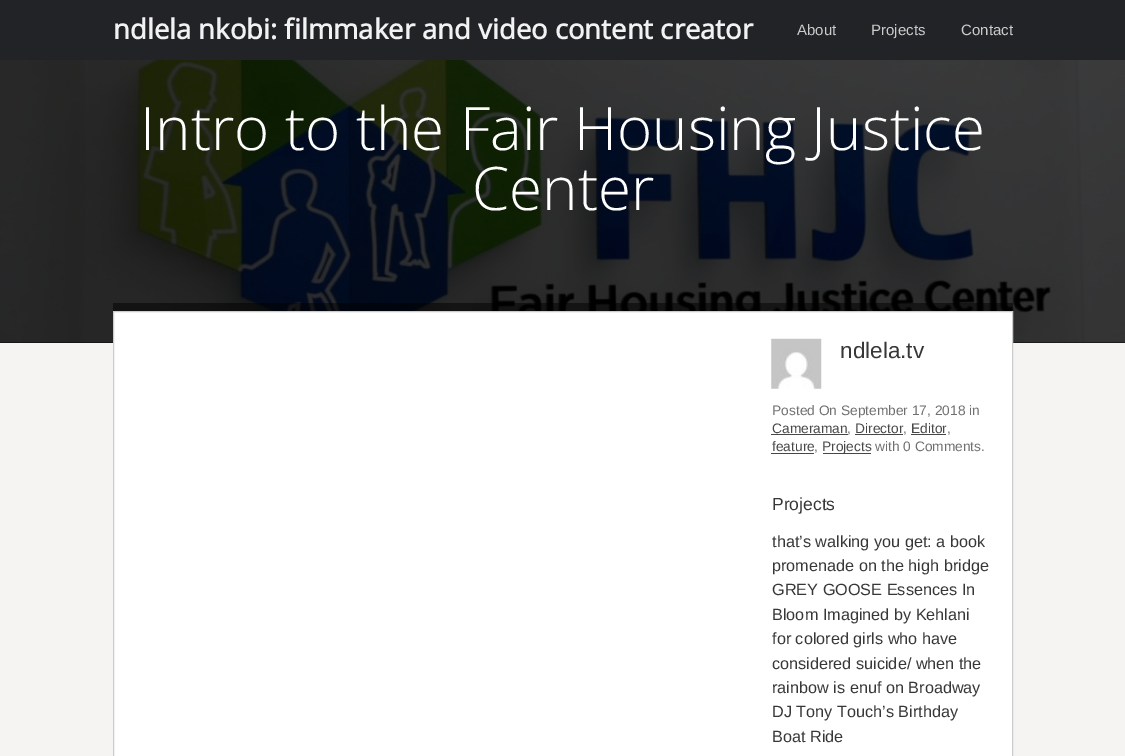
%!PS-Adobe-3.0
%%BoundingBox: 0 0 1125 756
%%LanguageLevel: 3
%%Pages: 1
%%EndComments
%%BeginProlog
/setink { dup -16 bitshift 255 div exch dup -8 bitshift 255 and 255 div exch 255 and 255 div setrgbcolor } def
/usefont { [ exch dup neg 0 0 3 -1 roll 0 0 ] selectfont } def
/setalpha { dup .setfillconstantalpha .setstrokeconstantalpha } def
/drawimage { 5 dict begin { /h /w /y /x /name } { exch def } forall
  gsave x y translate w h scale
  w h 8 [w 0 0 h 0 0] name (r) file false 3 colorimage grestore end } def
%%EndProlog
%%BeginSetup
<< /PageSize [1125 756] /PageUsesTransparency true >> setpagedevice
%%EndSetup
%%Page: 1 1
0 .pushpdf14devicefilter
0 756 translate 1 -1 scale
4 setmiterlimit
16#F6F4F2 setink
0 0 1125 756 rectfill
16#212326 setink
0 0 1125 60 rectfill
/OpenSans-Bold 27.5 usefont
16#F2F2F2 setink
113 39 moveto (ndlela nkobi: filmmaker and video content creator) show
/LiberationSans-Regular 15 usefont
16#CBCBCB setink
[
    [(About) 797 35]
    [(Projects) 871 35]
    [(Contact) 961 35]
] { aload pop moveto show } forall
16#070707 setink
0 342 1125 1 rectfill
(img1.raw) 0 60 1125 283 drawimage
/OpenSans-Light 60 usefont
16#FFFFFF setink
140 150 moveto (Intro to the Fair Housing Justice) show
472 210 moveto (Center) show
0.5 setalpha
16#000000 setink
113 303 900 8 rectfill
1 setalpha
16#FFFFFF setink
113.5 311.5 moveto 1012.5 311.5 lineto 1012.5 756.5 lineto 113.5 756.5 lineto closepath gsave fill grestore
16#CCCCCC setink
stroke
(img2.raw) 771 338 51 51 drawimage
/LiberationSans-Regular 22.5 usefont
16#373737 setink
840 358 moveto (ndlela.tv) show
/LiberationSans-Regular 13.75 usefont
16#6F6F6F setink
772 415 moveto (Posted On September 17, 2018 in) show
16#474747 setink
772 433 moveto (Cameraman) show
16#6F6F6F setink
847 433 moveto (,) show
16#474747 setink
771 434 77 1 rectfill
855 433 moveto (Director) show
16#6F6F6F setink
903 433 moveto (,) show
16#474747 setink
855 434 48 1 rectfill
911 433 moveto (Editor) show
16#6F6F6F setink
947 433 moveto (,) show
16#474747 setink
911 434 35 1 rectfill
772 451 moveto (feature) show
16#6F6F6F setink
814 451 moveto (,) show
16#474747 setink
771 453 43 1 rectfill
823 453 48 1 rectfill
822 451 moveto (Projects) show
16#6F6F6F setink
875 451 moveto (with 0 Comments.) show
/LiberationSans-Regular 17.5 usefont
16#373737 setink
772 510 moveto (Projects) show
/LiberationSans-Regular 16.25 usefont
[
    [(that’s walking you get: a book) 772 547]
    [(promenade on the high bridge) 772 571]
    [(GREY GOOSE Essences In) 772 595]
    [(Bloom Imagined by Kehlani) 772 620]
    [(for colored girls who have) 772 644]
    [(considered suicide/ when the) 772 669]
    [(rainbow is enuf on Broadway) 772 693]
    [(DJ Tony Touch’s Birthday) 772 717]
    [(Boat Ride) 772 742]
] { aload pop moveto show } forall
.poppdf14devicefilter showpage
%%EOF
